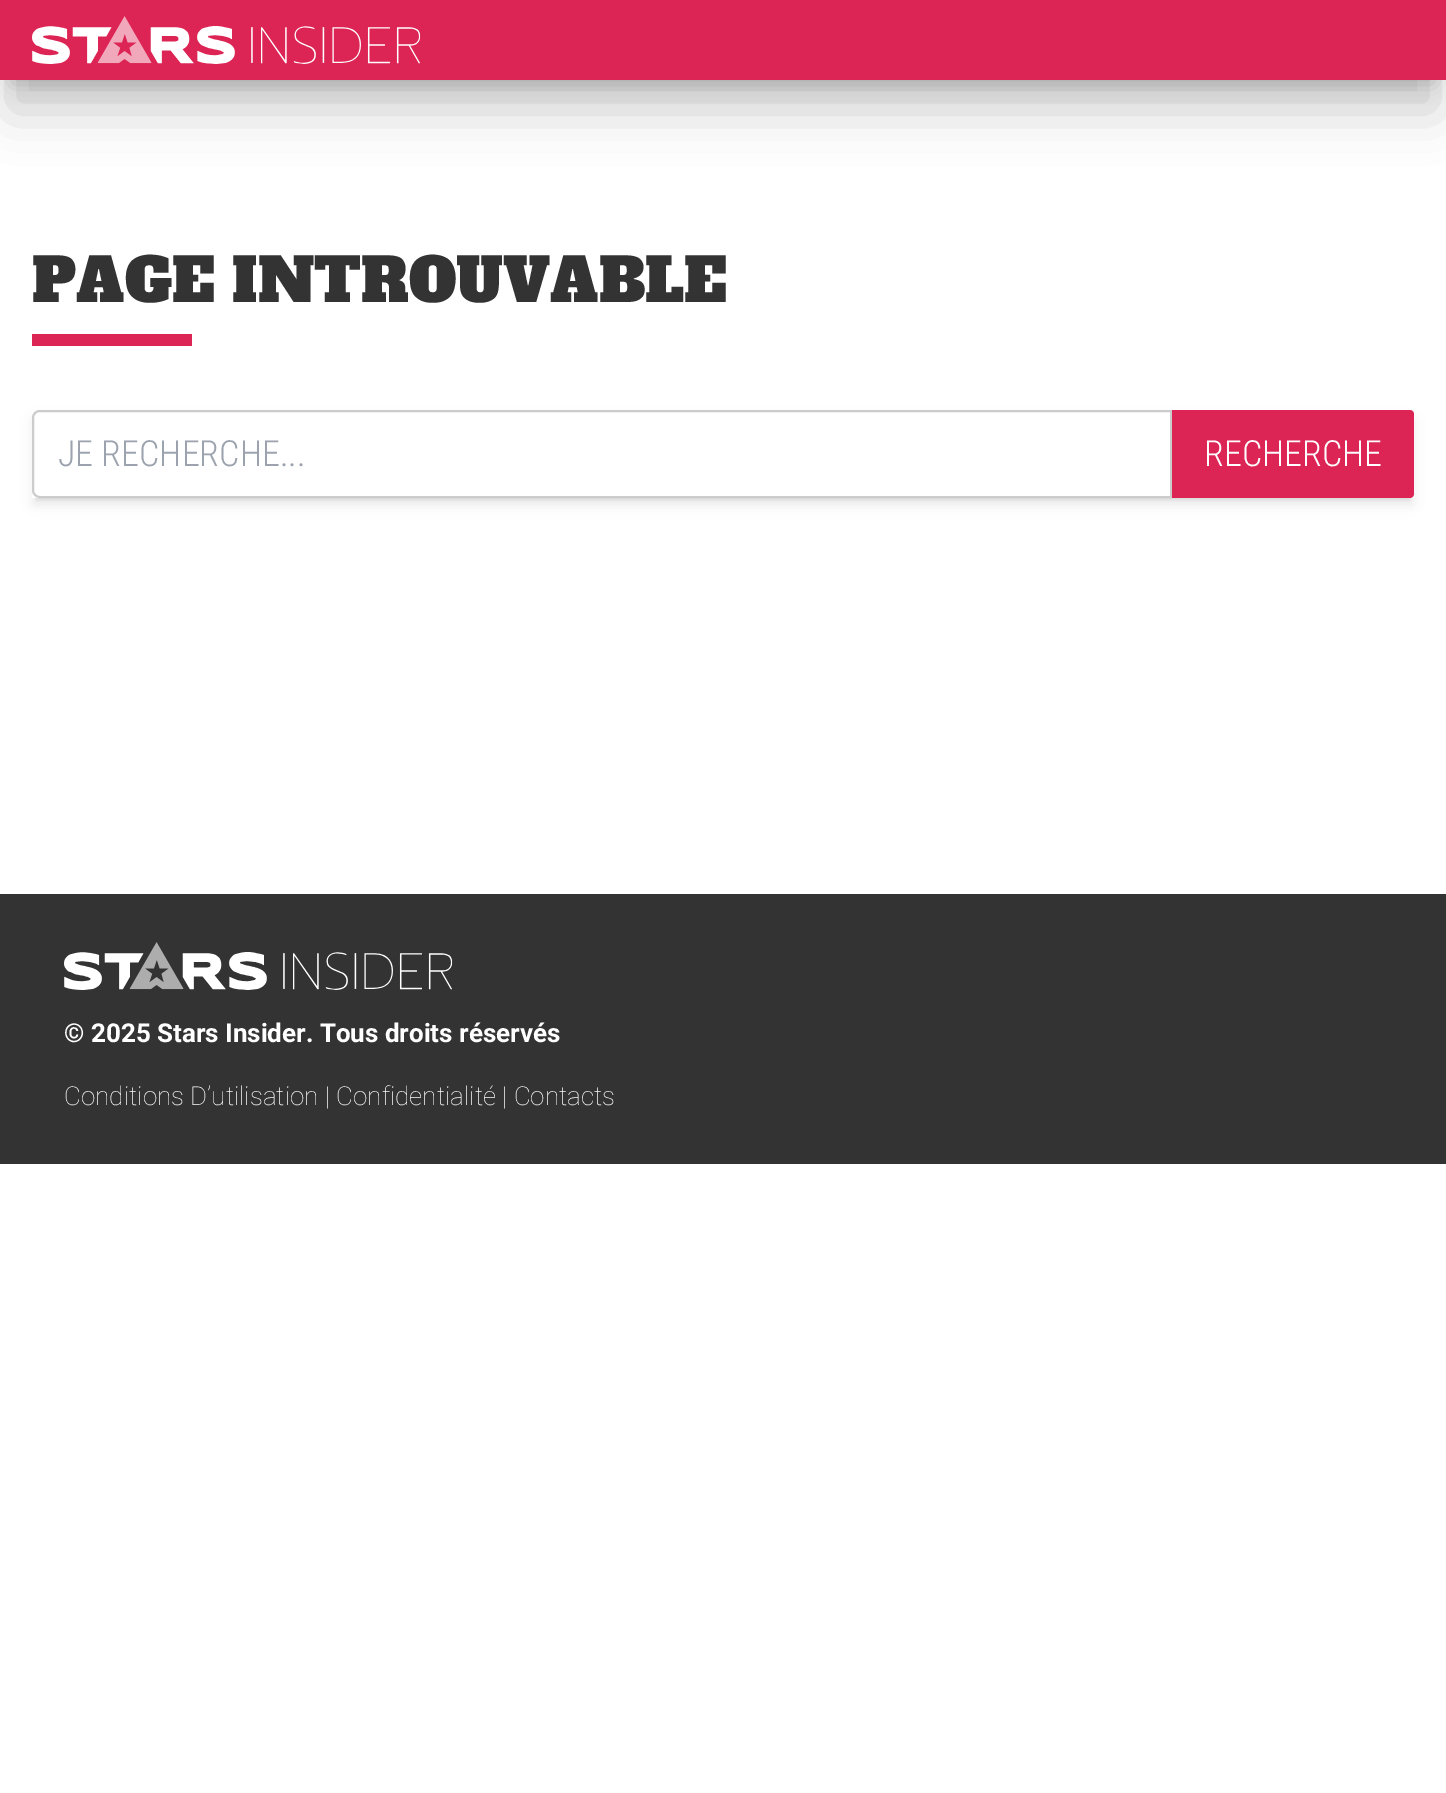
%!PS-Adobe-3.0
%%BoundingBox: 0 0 1446 1793
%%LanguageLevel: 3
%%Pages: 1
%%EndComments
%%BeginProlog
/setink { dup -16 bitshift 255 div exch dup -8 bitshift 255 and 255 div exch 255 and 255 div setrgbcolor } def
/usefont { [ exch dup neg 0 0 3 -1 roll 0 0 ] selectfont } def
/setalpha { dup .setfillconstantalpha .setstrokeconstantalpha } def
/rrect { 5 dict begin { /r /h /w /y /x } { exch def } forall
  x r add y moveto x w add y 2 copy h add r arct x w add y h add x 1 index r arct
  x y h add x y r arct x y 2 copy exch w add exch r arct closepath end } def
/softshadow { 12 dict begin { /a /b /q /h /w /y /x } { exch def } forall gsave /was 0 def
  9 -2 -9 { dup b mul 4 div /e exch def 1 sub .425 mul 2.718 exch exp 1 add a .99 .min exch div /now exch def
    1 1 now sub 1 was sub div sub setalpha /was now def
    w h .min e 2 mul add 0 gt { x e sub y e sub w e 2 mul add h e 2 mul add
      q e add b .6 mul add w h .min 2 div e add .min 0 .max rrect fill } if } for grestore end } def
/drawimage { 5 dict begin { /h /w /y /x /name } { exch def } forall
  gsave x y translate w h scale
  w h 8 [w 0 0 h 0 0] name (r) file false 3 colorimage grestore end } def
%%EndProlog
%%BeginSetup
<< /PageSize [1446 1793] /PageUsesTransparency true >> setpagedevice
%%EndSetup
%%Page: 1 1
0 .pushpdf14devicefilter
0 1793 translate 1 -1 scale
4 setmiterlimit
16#FFFFFF setink
0 0 1446 1793 rectfill
16#000000 setink
12 28 1422 56 0 10 0.2 softshadow
10 50 1426 60 0 25 0.2 softshadow
16#DC2555 setink
0 0 1446 80 rectfill
(img1.raw) 32 16 389 48 drawimage
/AlfaSlabOne-Regular 60 usefont
16#333333 setink
32 302 moveto (PAGE INTROUVABLE) show
16#DC2555 setink
32 334 160 12 rectfill
gsave
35 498 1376 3 rectclip
16#000000 setink
36 418 1374 80 0 4 0.1 softshadow
grestore
gsave
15 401 moveto 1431 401 lineto 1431 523 lineto 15 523 lineto closepath 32 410 moveto 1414 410 lineto 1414 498 lineto 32 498 lineto closepath eoclip newpath
16#000000 setink
34 420 1378 84 0 6 0.1 softshadow
grestore
16#CCCCCC setink
2 setlinewidth
40 411 moveto 1171 411 lineto 1171 497 lineto 40 497 lineto 36 497 33 494 33 490 curveto 33 418 lineto 33 414 36 411 40 411 curveto closepath stroke
/RobotoCondensed-Light 36 usefont
16#9CA3AF setink
58 466 moveto (JE RECHERCHE...) show
16#DC2555 setink
1172 410 moveto 1410 410 lineto 1412 410 1414 412 1414 414 curveto 1414 494 lineto 1414 496 1412 498 1410 498 curveto 1172 498 lineto closepath fill
16#FFFFFF setink
1204 466 moveto (RECHERCHE) show
16#333333 setink
0 894 1446 270 rectfill
(img2.raw) 64 942 389 48 drawimage
/Roboto-Bold 26 usefont
16#FFFFFF setink
64 1042 moveto (© 2025 Stars Insider. Tous droits réservés) show
/Roboto-Thin 26 usefont
64 1105 moveto (Conditions D’utilisation | Confidentialité | Contacts) show
.poppdf14devicefilter showpage
%%EOF
